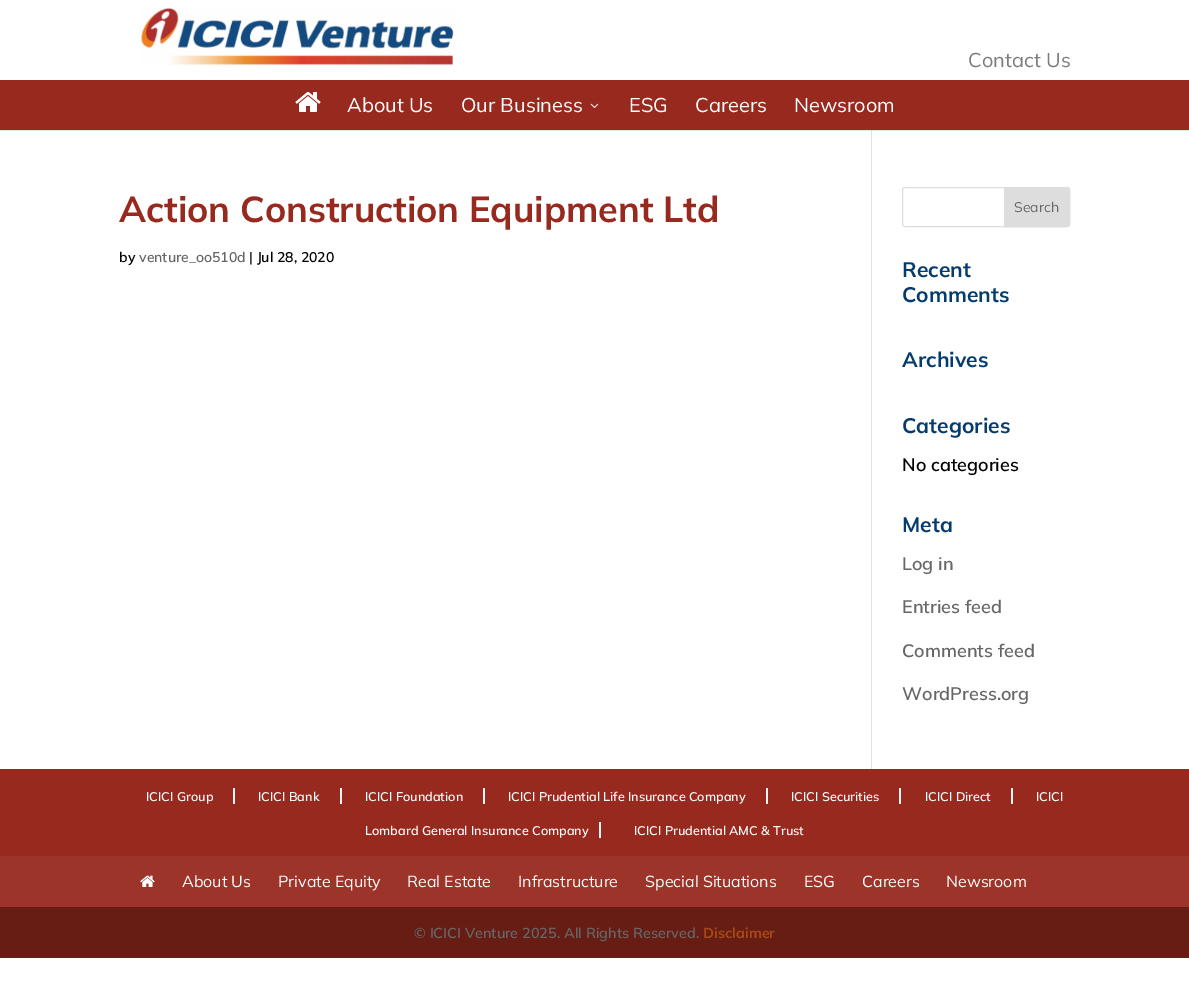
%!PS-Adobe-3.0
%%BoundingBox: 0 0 1189 996
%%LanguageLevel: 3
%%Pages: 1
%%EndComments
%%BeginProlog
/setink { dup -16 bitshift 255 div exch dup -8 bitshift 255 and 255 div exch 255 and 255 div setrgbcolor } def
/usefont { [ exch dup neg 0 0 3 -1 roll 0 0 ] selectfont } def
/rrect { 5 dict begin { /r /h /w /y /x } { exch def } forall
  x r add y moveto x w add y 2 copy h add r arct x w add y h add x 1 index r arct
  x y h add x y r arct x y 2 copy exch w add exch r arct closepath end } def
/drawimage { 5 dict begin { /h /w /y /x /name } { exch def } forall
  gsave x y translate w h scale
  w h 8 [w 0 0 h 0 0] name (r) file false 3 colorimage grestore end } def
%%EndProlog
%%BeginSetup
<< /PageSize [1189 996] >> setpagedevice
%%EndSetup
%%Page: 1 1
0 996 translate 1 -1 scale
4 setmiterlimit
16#FFFFFF setink
0 0 1189 996 rectfill
16#E6E6E6 setink
0 130 1189 1 rectfill
(img1.raw) 140 7 314 59 drawimage
/Mulish-Regular 20 usefont
16#7C7C7C setink
968 67 moveto (Contact Us) show
16#E2E2E2 setink
871 129 1 640 rectfill
16#97291E setink
0 80 1189 50 rectfill
(img2.raw) 295 92 26 20 drawimage
16#FFFFFF setink
347 112 moveto (About Us) show
461 112 moveto (Our Business) show
(img3.raw) 590 103 9 5 drawimage
[
    [(ESG) 629 112]
    [(Careers) 695 112]
    [(Newsroom) 794 112]
] { aload pop moveto show } forall
16#CBCBCB setink
871 130 1 1 rectfill
/Mulish-Bold 36 usefont
16#97291E setink
119 222 moveto (Action Construction Equipment Ltd) show
/Mulish-SemiBold 14 usefont
16#000000 setink
119 262 moveto (by) show
16#666666 setink
139 262 moveto (venture_oo510d) show
16#000000 setink
249 262 moveto (| Jul 28, 2020) show
16#DDDDDD setink
902.5 187.5 167 39 2.5 rrect stroke
1004.5 187.5 moveto 1067 187.5 lineto 1068.5 187.5 1069.5 188.5 1069.5 190 curveto 1069.5 224 lineto 1069.5 225.5 1068.5 226.5 1067 226.5 curveto 1004.5 226.5 lineto closepath gsave fill grestore
stroke
/Mulish-Regular 14 usefont
16#666666 setink
1014 212 moveto (Search) show
/Mulish-Bold 21 usefont
16#053C6D setink
[
    [(Recent) 902 277]
    [(Comments) 902 302]
    [(Archives) 902 367]
    [(Categories) 902 433]
] { aload pop moveto show } forall
/Mulish-SemiBold 18 usefont
16#000000 setink
902 471 moveto (No categories) show
/Mulish-Bold 21 usefont
16#053C6D setink
902 532 moveto (Meta) show
/Mulish-SemiBold 18 usefont
16#666666 setink
[
    [(Log in) 902 570]
    [(Entries feed) 902 613]
    [(Comments feed) 902 657]
    [(WordPress.org) 902 700]
] { aload pop moveto show } forall
16#97291E setink
0 769 1189 87 rectfill
/Mulish-SemiBold 12.6 usefont
16#FFFFFF setink
146 801 moveto (ICICI Group) show
16#F5F5F5 setink
233 788 2 16 rectfill
16#FFFFFF setink
258 801 moveto (ICICI Bank) show
16#F5F5F5 setink
340 788 2 16 rectfill
16#FFFFFF setink
365 801 moveto (ICICI Foundation) show
16#F5F5F5 setink
483 788 2 16 rectfill
16#FFFFFF setink
508 801 moveto (ICICI Prudential Life Insurance Company) show
16#F5F5F5 setink
766 788 2 16 rectfill
16#FFFFFF setink
791 801 moveto (ICICI Securities) show
16#F5F5F5 setink
899 788 2 16 rectfill
16#FFFFFF setink
925 801 moveto (ICICI Direct) show
16#F5F5F5 setink
1011 788 2 16 rectfill
16#FFFFFF setink
1036 801 moveto (ICICI) show
365 835 moveto (Lombard General Insurance Company) show
16#F5F5F5 setink
599 822 2 16 rectfill
16#FFFFFF setink
634 835 moveto (ICICI Prudential AMC & Trust) show
16#9C3429 setink
0 856 1189 51 rectfill
(img4.raw) 140 875 15 12 drawimage
/Mulish-Regular 16 usefont
16#FFFFFF setink
[
    [(About Us) 182 887]
    [(Private Equity) 278 887]
    [(Real Estate) 407 887]
    [(Infrastructure) 518 887]
    [(Special Situations) 645 887]
    [(ESG) 804 887]
    [(Careers) 862 887]
    [(Newsroom) 946 887]
] { aload pop moveto show } forall
16#671C14 setink
0 907 1189 51 rectfill
/Mulish-SemiBold 14.4 usefont
16#666666 setink
414 938 moveto (© ICICI Venture 2025. All Rights Reserved.) show
/Mulish-Bold 14.4 usefont
16#A74A16 setink
703 938 moveto (Disclaimer) show
showpage
%%EOF
